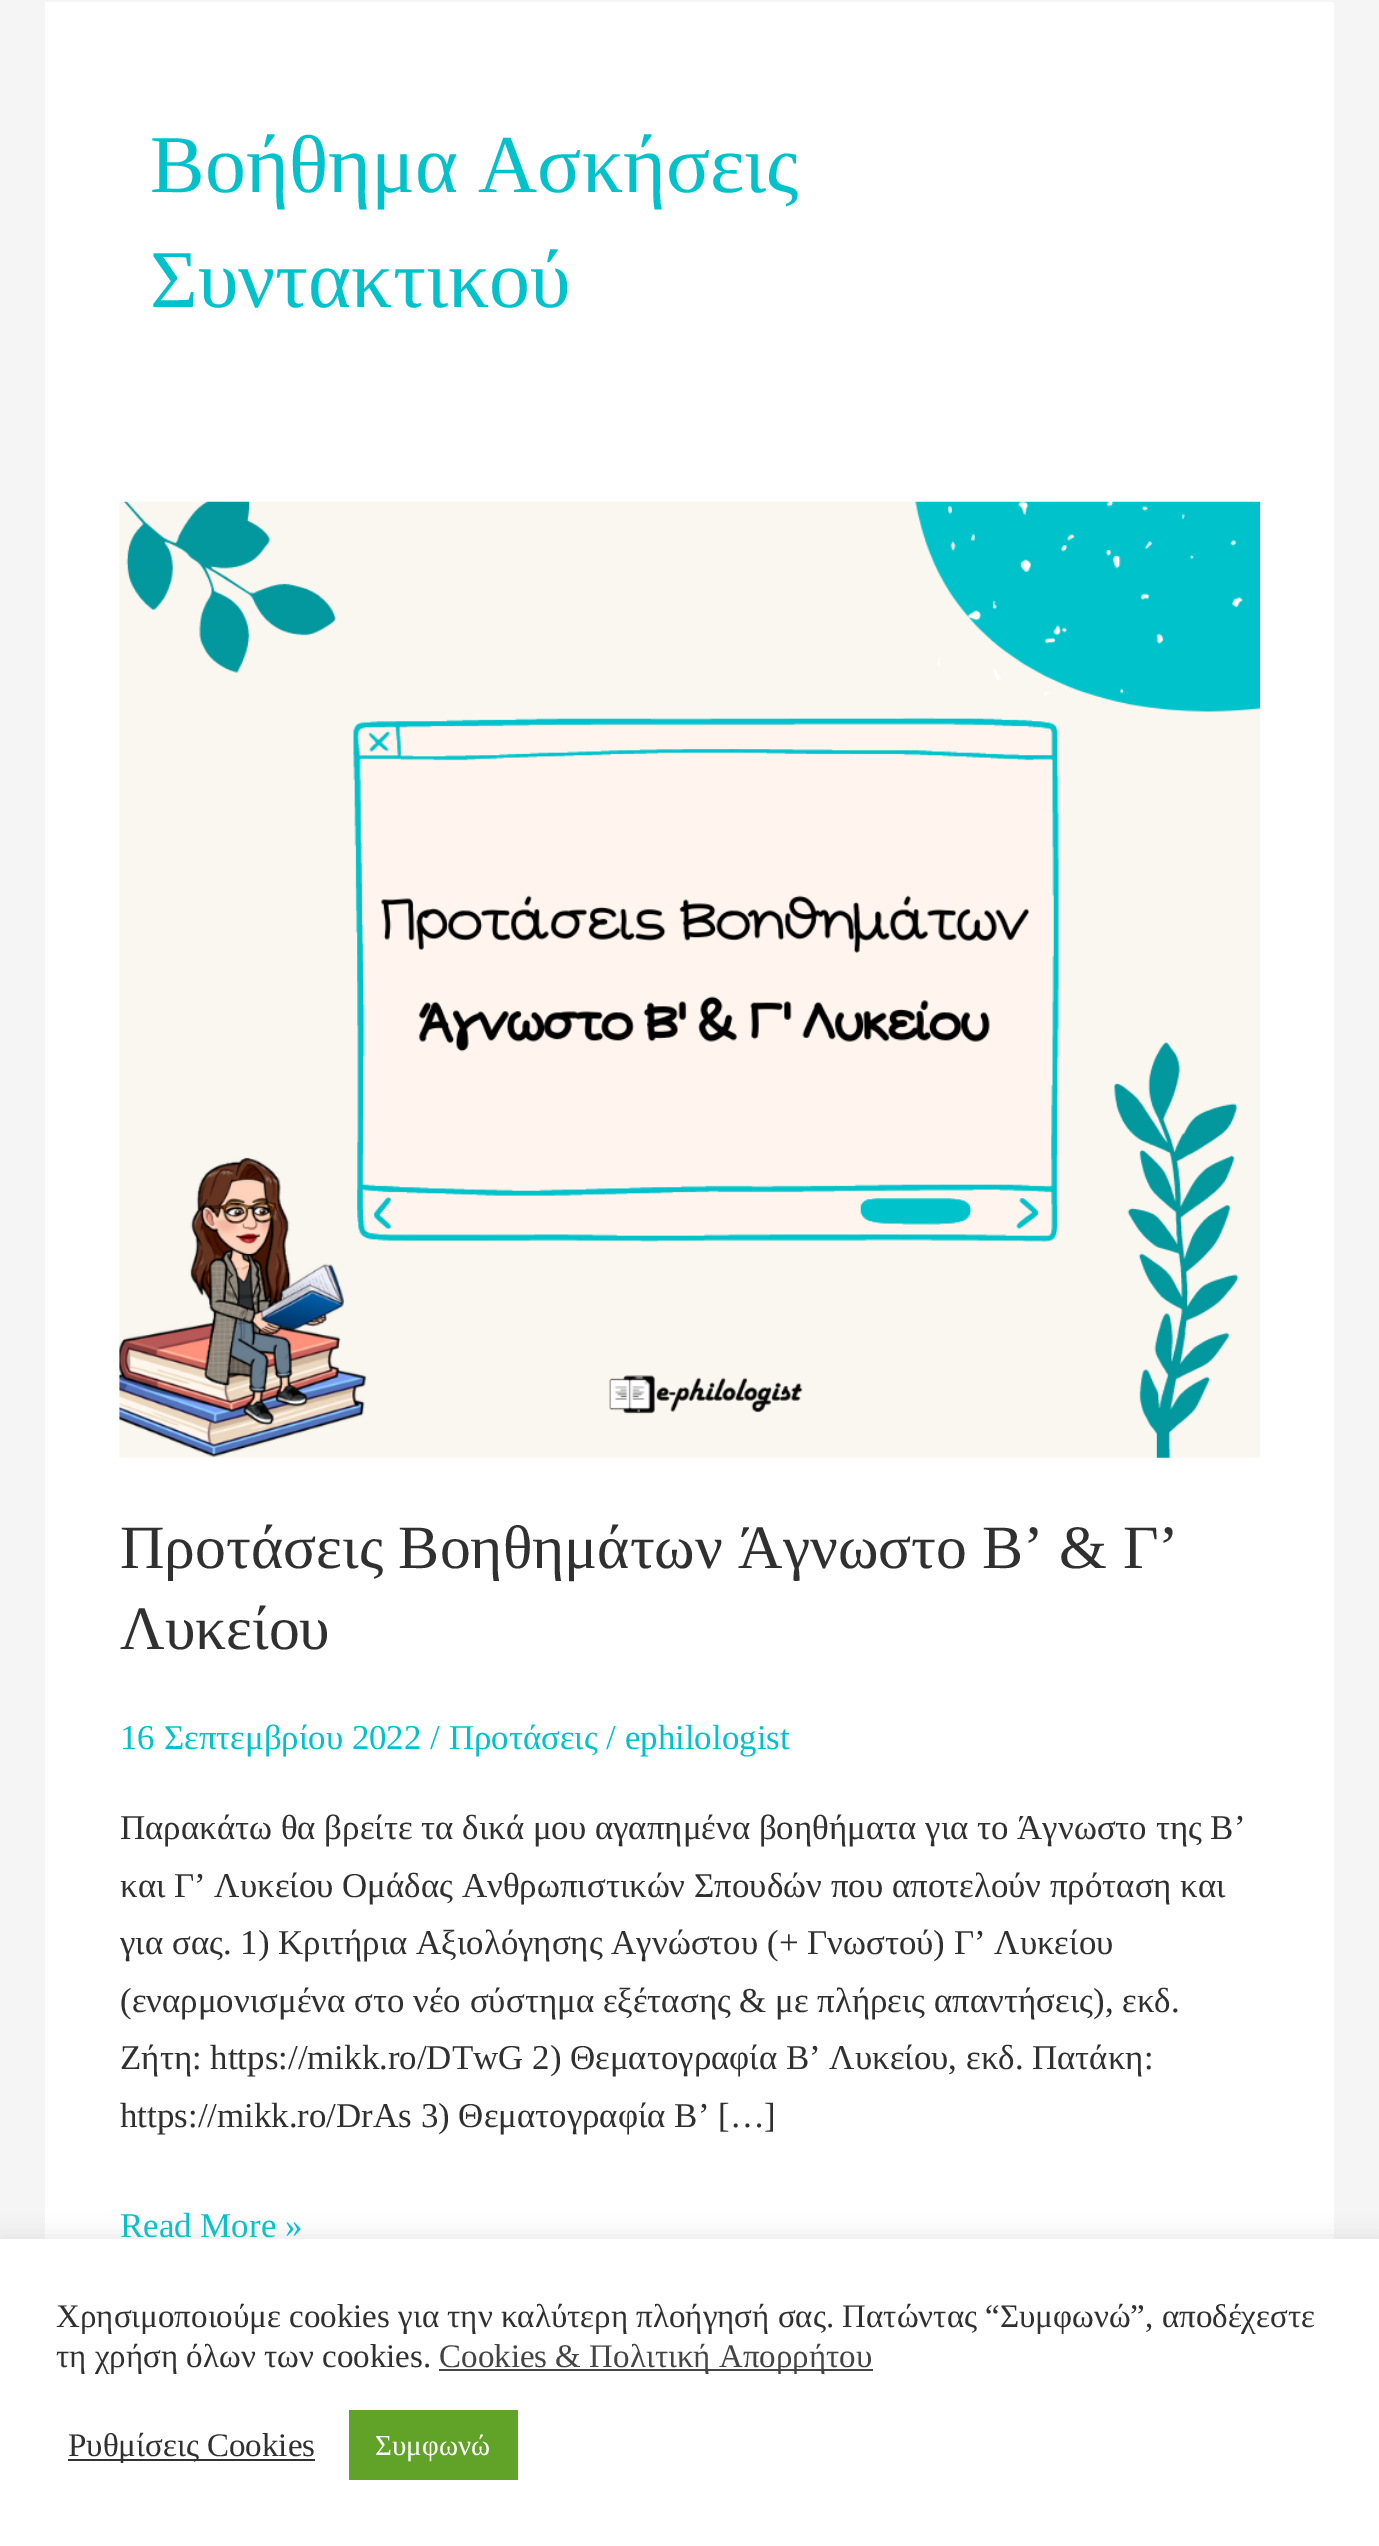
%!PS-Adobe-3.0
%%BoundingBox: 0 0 1379 2546
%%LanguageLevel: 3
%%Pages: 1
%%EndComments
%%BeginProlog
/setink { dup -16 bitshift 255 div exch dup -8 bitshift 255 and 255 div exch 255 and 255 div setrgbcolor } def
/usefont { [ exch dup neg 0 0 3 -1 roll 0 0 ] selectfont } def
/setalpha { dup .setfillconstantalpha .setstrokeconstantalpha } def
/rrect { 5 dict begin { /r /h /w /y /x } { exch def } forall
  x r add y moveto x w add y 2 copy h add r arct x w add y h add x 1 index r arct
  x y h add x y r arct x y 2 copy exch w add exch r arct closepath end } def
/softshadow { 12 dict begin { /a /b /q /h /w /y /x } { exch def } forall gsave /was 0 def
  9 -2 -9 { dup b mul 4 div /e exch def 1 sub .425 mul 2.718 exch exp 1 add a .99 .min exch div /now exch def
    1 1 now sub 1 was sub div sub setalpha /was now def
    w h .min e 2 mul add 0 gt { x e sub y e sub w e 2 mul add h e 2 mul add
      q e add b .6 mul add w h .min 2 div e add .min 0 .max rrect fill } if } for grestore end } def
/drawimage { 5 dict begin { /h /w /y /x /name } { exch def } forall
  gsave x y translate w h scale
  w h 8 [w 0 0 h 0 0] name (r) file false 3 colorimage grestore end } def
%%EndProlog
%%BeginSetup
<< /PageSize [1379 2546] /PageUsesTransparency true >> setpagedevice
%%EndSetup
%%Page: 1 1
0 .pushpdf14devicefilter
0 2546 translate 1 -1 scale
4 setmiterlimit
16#F5F5F5 setink
0 0 1379 2546 rectfill
16#FFFFFF setink
45 2 1289 2237 rectfill
/LiberationSerif-Regular 82 usefont
16#00C2CB setink
150 192 moveto (Βοήθημα Ασκήσεις) show
150 307 moveto (Συντακτικού) show
(img1.raw) 119 501 1141 957 drawimage
/LiberationSerif-Regular 61.6 usefont
16#303030 setink
120 1568 moveto (Προτάσεις Βοηθημάτων Άγνωστο Β’ & Γ’) show
120 1649 moveto (Λυκείου) show
/LiberationSerif-Regular 34.9 usefont
16#00C2CB setink
120 1749 moveto (16 Σεπτεμβρίου 2022 / Προτάσεις / ephilologist) show
16#303030 setink
[
    [(Παρακάτω θα βρείτε τα δικά μου αγαπημένα βοηθήματα για το Άγνωστο της Β’) 120 1839]
    [(και Γ’ Λυκείου Ομάδας Ανθρωπιστικών Σπουδών που αποτελούν πρόταση και) 120 1897]
    [(για σας. 1\) Κριτήρια Αξιολόγησης Αγνώστου \(+ Γνωστού\) Γ’ Λυκείου) 120 1954]
    [(\(εναρμονισμένα στο νέο σύστημα εξέτασης & με πλήρεις απαντήσεις\), εκδ.) 120 2012]
    [(Ζήτη: https://mikk.ro/DTwG 2\) Θεματογραφία Β’ Λυκείου, εκδ. Πατάκη:) 120 2069]
    [(https://mikk.ro/DrAs 3\) Θεματογραφία Β’ […]) 120 2127]
] { aload pop moveto show } forall
16#00C2CB setink
120 2237 moveto (Read More ») show
16#ACABAB setink
0 2237 1379 308 0 11 0.3 softshadow
16#FFFFFF setink
0 2239 1379 307 rectfill
/LiberationSerif-Regular 33 usefont
16#303030 setink
56 2327 moveto (Χρησιμοποιούμε cookies για την καλύτερη πλοήγησή σας. Πατώντας “Συμφωνώ”, αποδέχεστε) show
56 2367 moveto (τη χρήση όλων των cookies.) show
16#444444 setink
439 2369 434 2 rectfill
439 2367 moveto (Cookies & Πολιτική Απορρήτου) show
16#333333 setink
68 2459 247 2 rectfill
16#303030 setink
68 2456 moveto (Ρυθμίσεις Cookies) show
16#61A229 setink
349 2410 169 70 rectfill
/LiberationSerif-Regular 29 usefont
16#FFFFFF setink
375 2455 moveto (Συμφωνώ) show
.poppdf14devicefilter showpage
%%EOF
